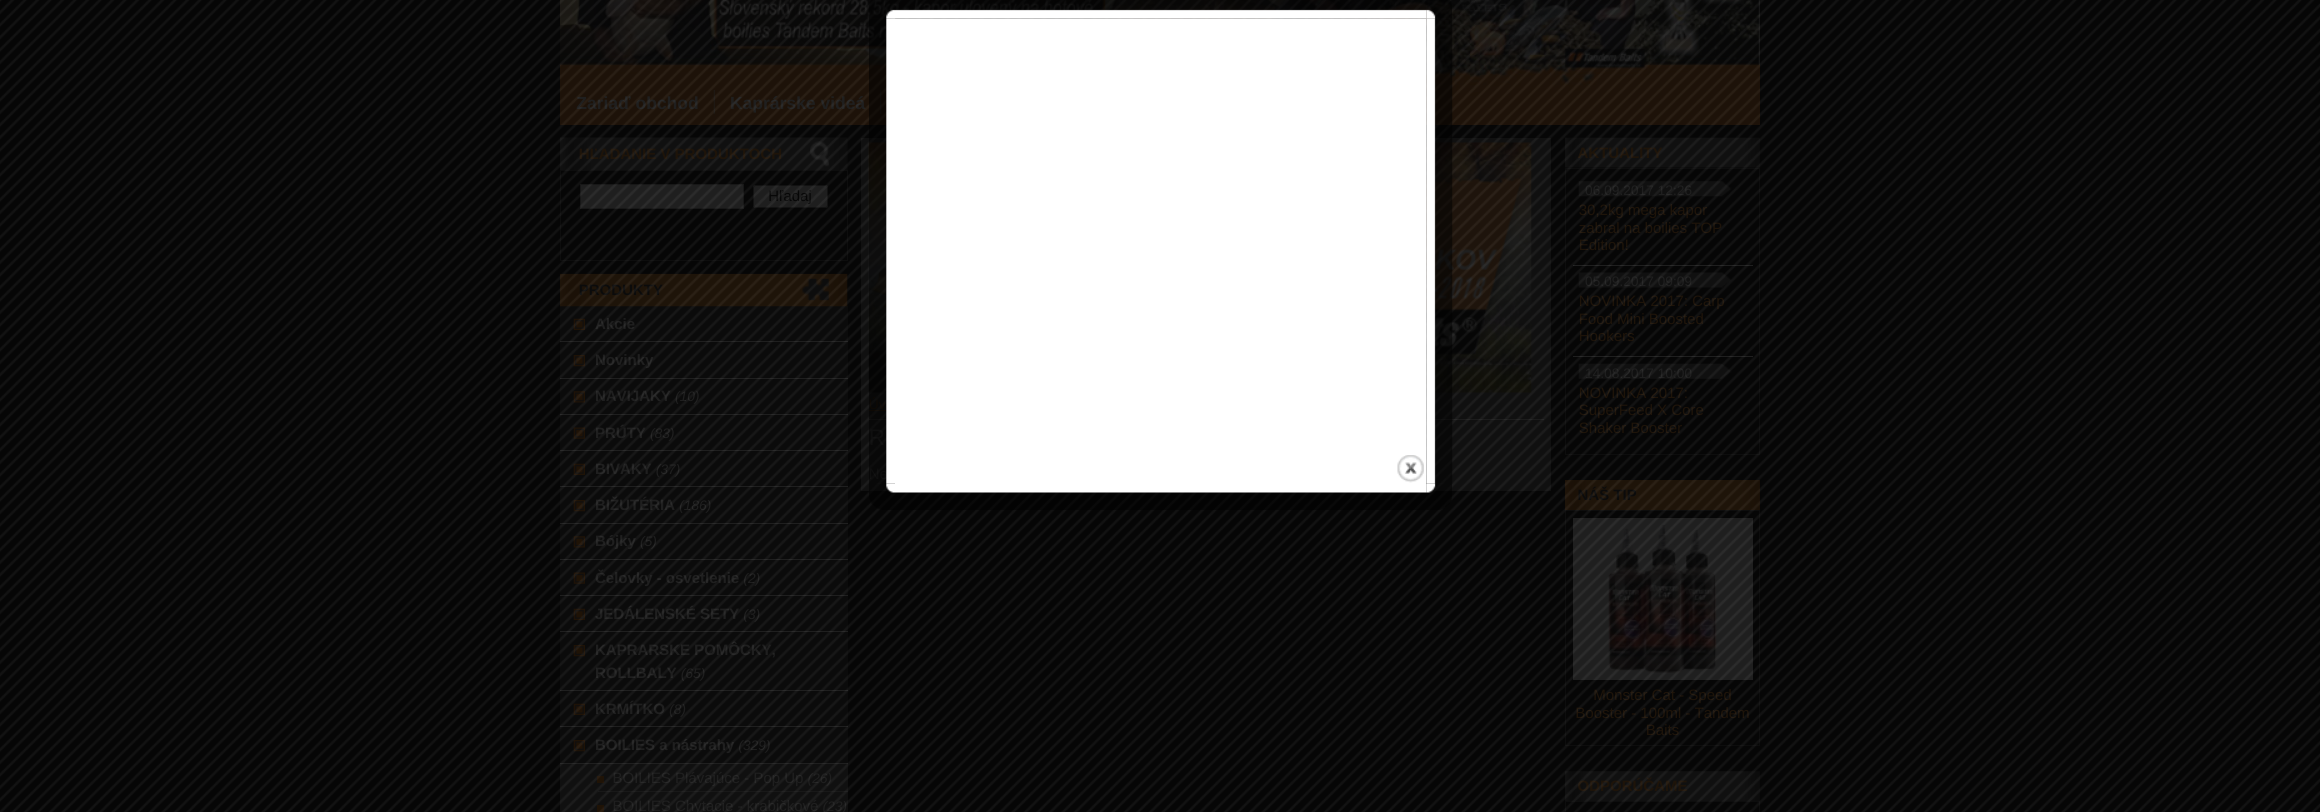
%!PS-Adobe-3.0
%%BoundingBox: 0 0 2320 812
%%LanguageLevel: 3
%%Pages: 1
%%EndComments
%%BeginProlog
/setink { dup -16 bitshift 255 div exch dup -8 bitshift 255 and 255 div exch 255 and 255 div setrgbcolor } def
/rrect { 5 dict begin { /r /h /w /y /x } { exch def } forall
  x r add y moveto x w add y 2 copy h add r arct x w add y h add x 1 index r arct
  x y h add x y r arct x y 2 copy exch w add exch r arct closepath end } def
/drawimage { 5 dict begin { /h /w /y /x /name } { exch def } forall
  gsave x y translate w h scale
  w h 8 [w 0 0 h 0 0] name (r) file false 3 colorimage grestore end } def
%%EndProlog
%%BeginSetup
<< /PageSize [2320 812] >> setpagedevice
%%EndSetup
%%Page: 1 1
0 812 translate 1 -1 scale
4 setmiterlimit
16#FFFFFF setink
0 0 2320 812 rectfill
(img2.raw) 560 0 1200 125 drawimage
(img3.raw) 713 90 2 24 drawimage
(img4.raw) 880 90 2 24 drawimage
(img5.raw) 560 137 288 33 drawimage
(img6.raw) 810 141 19 26 drawimage
16#424242 setink
560.5 170.5 287 90 rectstroke
16#AAAAAA setink
580.5 184.5 163 24 rectstroke
16#767676 setink
753.5 185.5 74 22 2 rrect stroke
(img7.raw) 560 273 288 34 drawimage
(img8.raw) 802 278 27 23 drawimage
(img9.raw) 573 318 12 12 drawimage
(img10.raw) 573 355 12 12 drawimage
(img11.raw) 573 391 12 12 drawimage
(img12.raw) 573 427 12 12 drawimage
(img9.raw) 573 463 12 12 drawimage
(img10.raw) 573 500 12 12 drawimage
(img11.raw) 573 536 12 12 drawimage
(img13.raw) 573 572 12 12 drawimage
(img9.raw) 573 608 12 12 drawimage
(img10.raw) 573 645 12 12 drawimage
(img9.raw) 573 703 12 12 drawimage
(img10.raw) 573 740 12 12 drawimage
(img14.raw) 868 142 664 251 drawimage
(img15.raw) 1565 137 195 31 drawimage
16#424242 setink
1565.5 168.5 194 286 rectstroke
(img16.raw) 1578 181 154 16 drawimage
(img17.raw) 1578 272 154 16 drawimage
(img18.raw) 1578 363 154 16 drawimage
(img19.raw) 1565 480 195 30 drawimage
1565.5 510.5 194 235 rectstroke
(img20.raw) 1608 524 109 150 drawimage
(img21.raw) 1565 771 195 30 drawimage
1565.5 801.5 194 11 rectstroke
(img1.raw) 0 0 2320 812 drawimage
(img22.raw) 869 0 26 19 drawimage
(img23.raw) 895 0 532 19 drawimage
(img24.raw) 1426 0 26 19 drawimage
(img25.raw) 869 18 26 466 drawimage
(img27.raw) 1426 18 27 466 drawimage
(img29.raw) 895 483 532 27 drawimage
16#FFFFFF setink
895 19 531 465 rectfill
(img26.raw) 1397 455 27 28 drawimage
(img28.raw) 869 483 26 27 drawimage
(img30.raw) 1426 483 26 27 drawimage
showpage
%%EOF
